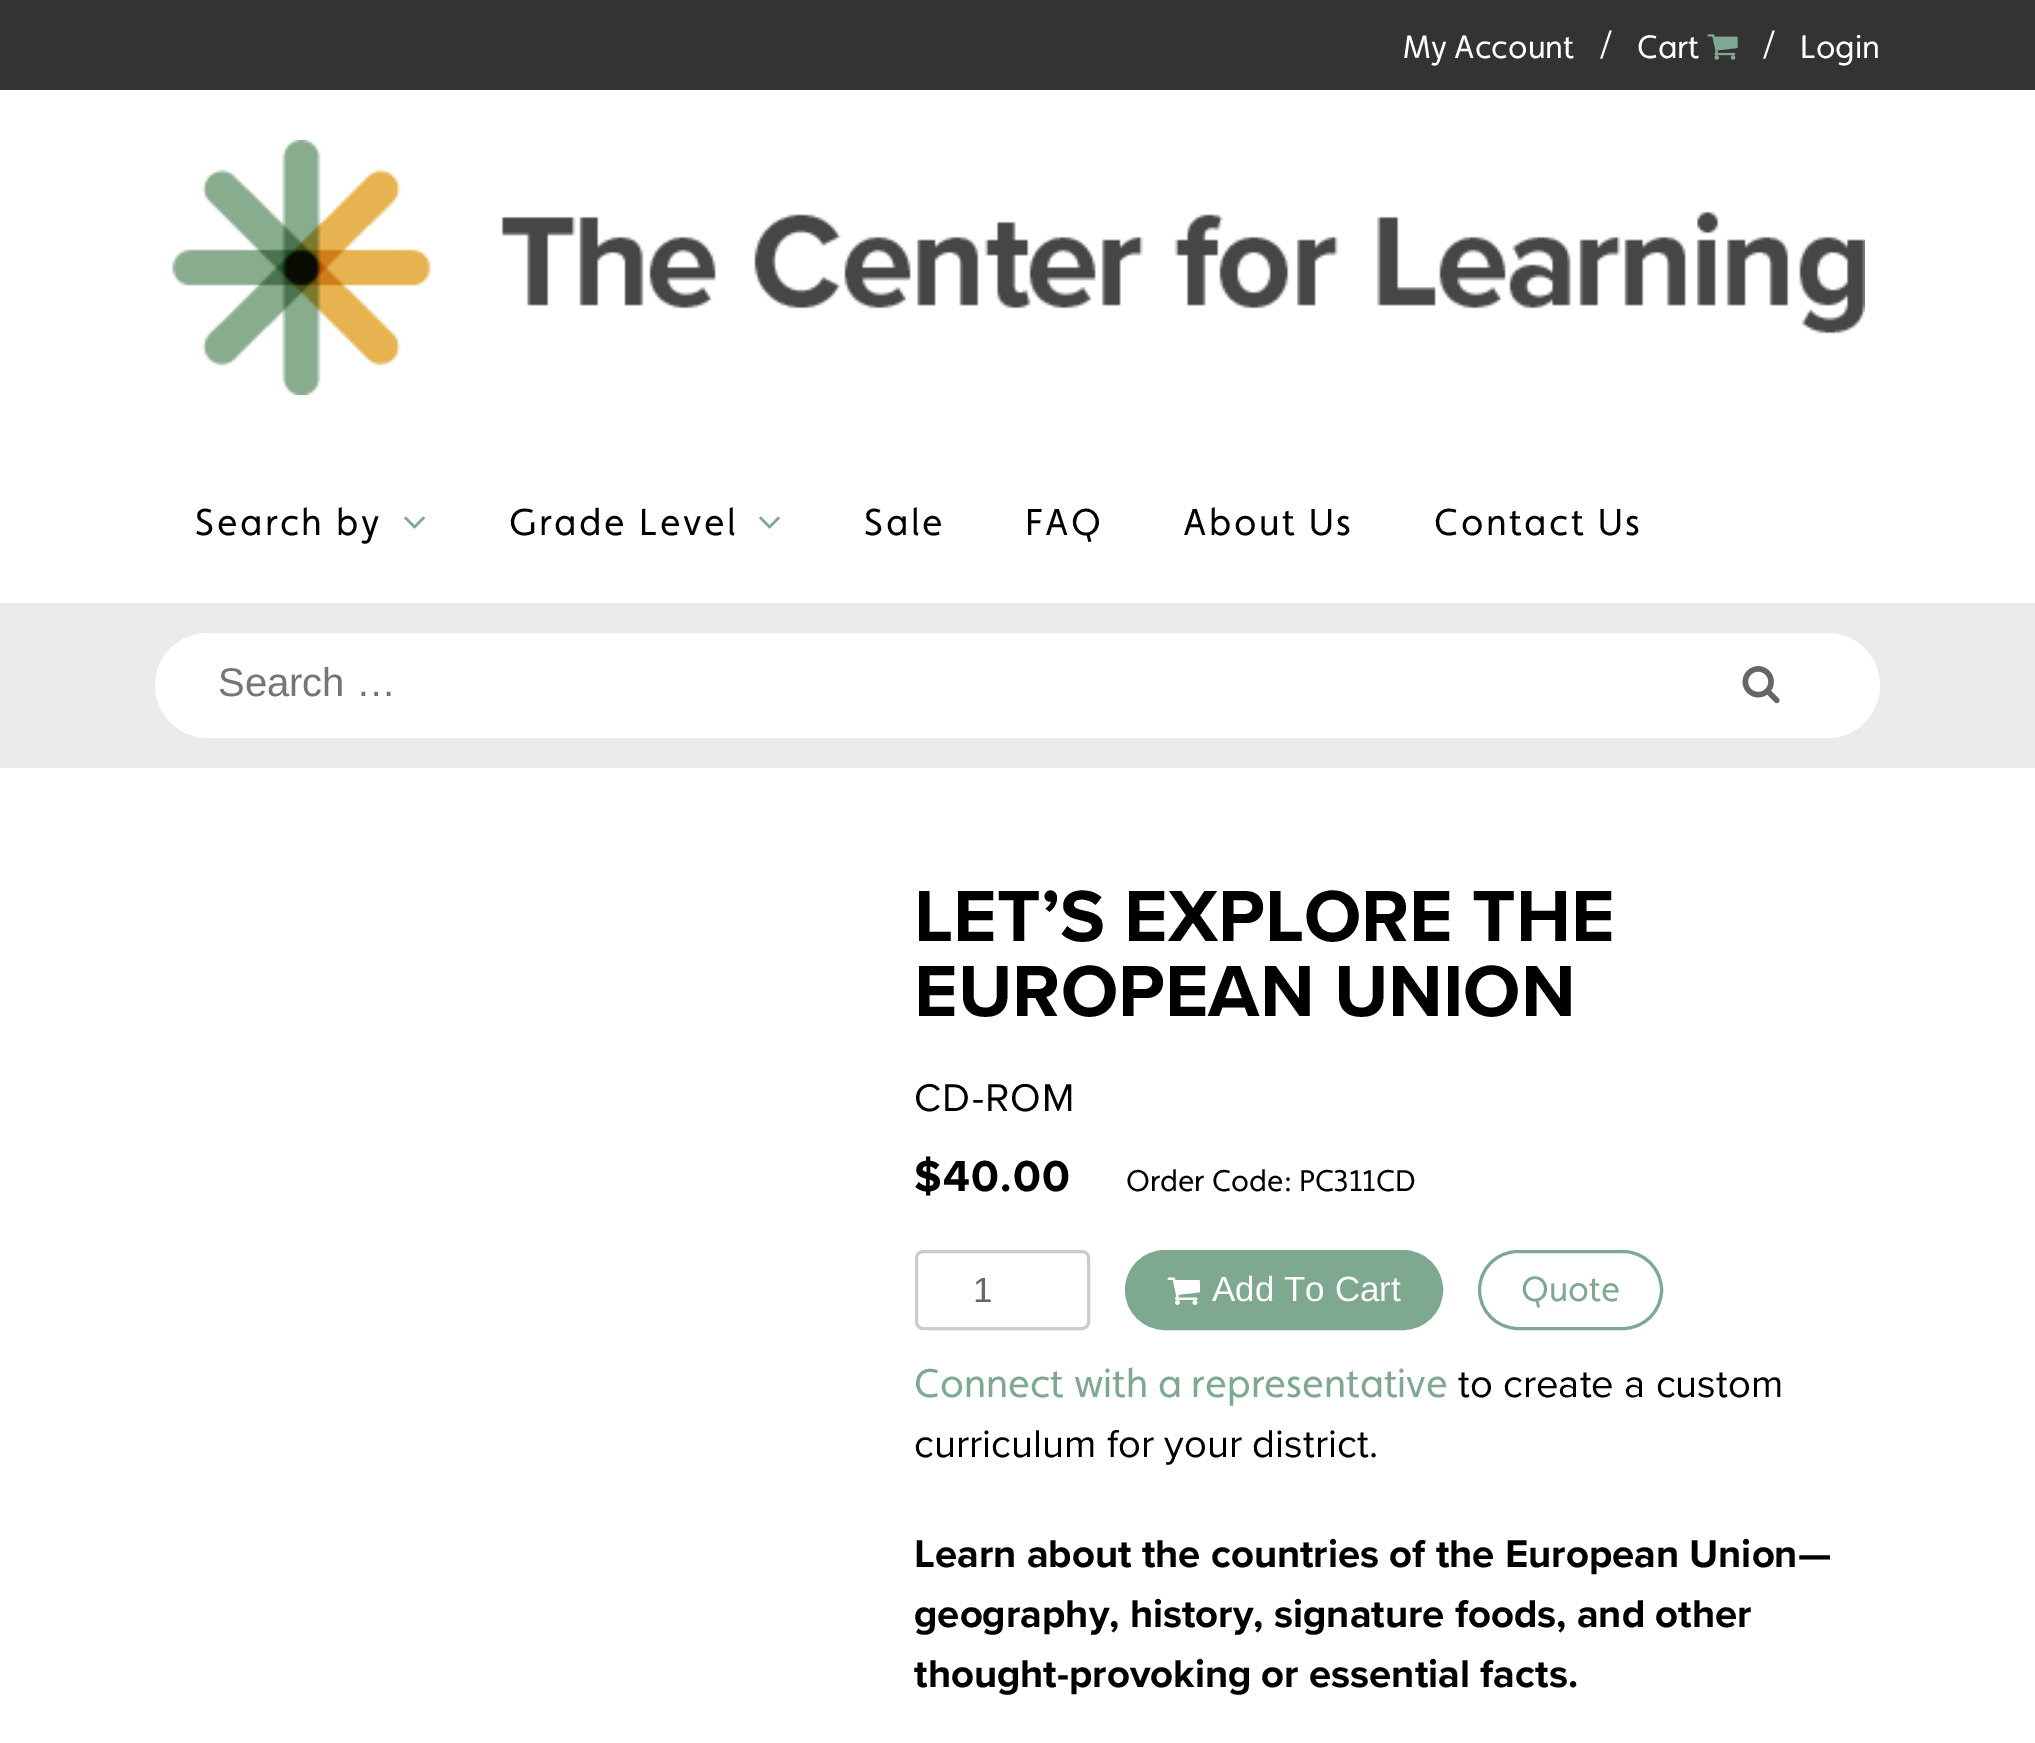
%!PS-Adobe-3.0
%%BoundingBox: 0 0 2035 1743
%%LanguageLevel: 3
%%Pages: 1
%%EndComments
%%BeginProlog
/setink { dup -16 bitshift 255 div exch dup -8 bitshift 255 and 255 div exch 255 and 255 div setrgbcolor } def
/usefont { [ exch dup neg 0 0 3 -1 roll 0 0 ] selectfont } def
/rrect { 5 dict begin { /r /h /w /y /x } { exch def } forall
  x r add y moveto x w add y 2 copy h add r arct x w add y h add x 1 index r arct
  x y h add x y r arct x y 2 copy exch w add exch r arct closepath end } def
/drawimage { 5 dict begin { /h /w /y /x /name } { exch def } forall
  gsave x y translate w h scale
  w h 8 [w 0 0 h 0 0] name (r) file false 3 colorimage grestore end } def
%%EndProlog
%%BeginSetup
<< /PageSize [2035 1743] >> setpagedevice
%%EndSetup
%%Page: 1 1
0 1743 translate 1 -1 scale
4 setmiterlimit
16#FFFFFF setink
0 0 2035 1743 rectfill
16#333333 setink
0 0 2035 90 rectfill
/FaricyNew-Regular 32.5 usefont
16#FFFFFF setink
1403 58 moveto (My Account) show
/ProximaNova-Regular 40 usefont
1600 58 moveto (/) show
/FaricyNew-Regular 32.5 usefont
1637 58 moveto (Cart) show
(img1.raw) 1707 34 31 26 drawimage
/ProximaNova-Regular 40 usefont
1763 58 moveto (/) show
/FaricyNew-Regular 32.5 usefont
1800 58 moveto (Login) show
(img2.raw) 172 140 1693 255 drawimage
/FaricyNew-Regular 37.5 usefont
16#000000 setink
195 535 moveto 2.5 0 (Search by) ashow
(img3.raw) 404 516 21 13 drawimage
509 535 moveto 2.5 0 (Grade Level) ashow
(img3.raw) 759 516 21 13 drawimage
864 535 moveto 2.5 0 (Sale) ashow
1025 535 moveto 2.5 0 (FAQ) ashow
1183 535 moveto 2.5 0 (About Us) ashow
1434 535 moveto 2.5 0 (Contact Us) ashow
16#EBEBEC setink
0 603 2035 165 rectfill
16#FFFFFF setink
207.5 633 moveto 1655 633 lineto 1655 738 lineto 207.5 738 lineto 178.5 738 155 714.5 155 685.5 curveto 155 656.5 178.5 633 207.5 633 curveto closepath fill
1643 633 moveto 1827.5 633 lineto 1856.5 633 1880 656.5 1880 685.5 curveto 1880 714.5 1856.5 738 1827.5 738 curveto 1643 738 lineto closepath fill
/LiberationSans-Regular 40 usefont
16#757575 setink
218 696 moveto (Search …) show
(img4.raw) 1742 666 38 38 drawimage
/ProximaNova-Bold 75 usefont
16#000000 setink
914 941 moveto (LET’S EXPLORE THE) show
914 1016 moveto (EUROPEAN UNION) show
/ProximaNova-Regular 40 usefont
914 1111 moveto 1.25 0 (CD-ROM) ashow
/ProximaNova-Bold 45 usefont
914 1191 moveto 1.25 0 ($40.00) ashow
/FaricyNew-Regular 30 usefont
1126 1191 moveto (Order Code: PC311CD) show
16#CCCCCC setink
3 setlinewidth
916.5 1251.5 172 77 6.5 rrect stroke
/LiberationSans-Regular 35 usefont
16#666666 setink
973 1302 moveto (1) show
16#7EA890 setink
1126.5 1251.5 315 77 38.5 rrect gsave fill grestore
stroke
(img5.raw) 1167 1277 33 28 drawimage
16#FFFFFF setink
1212 1301 moveto (Add To Cart) show
16#7EA890 setink
1479.5 1251.5 182 77 38.5 rrect stroke
/FaricyNew-Regular 35 usefont
1521 1301 moveto (Quote) show
/FaricyNew-Regular 40 usefont
914 1397 moveto (Connect with a representative) show
/ProximaNova-Regular 40 usefont
16#000000 setink
1458 1397 moveto (to create a custom) show
914 1457 moveto (curriculum for your district.) show
/ProximaNova-Bold 40 usefont
[
    [(Learn about the countries of the European Union—) 914 1567]
    [(geography, history, signature foods, and other) 914 1627]
    [(thought-provoking or essential facts.) 914 1687]
] { aload pop moveto show } forall
showpage
%%EOF
